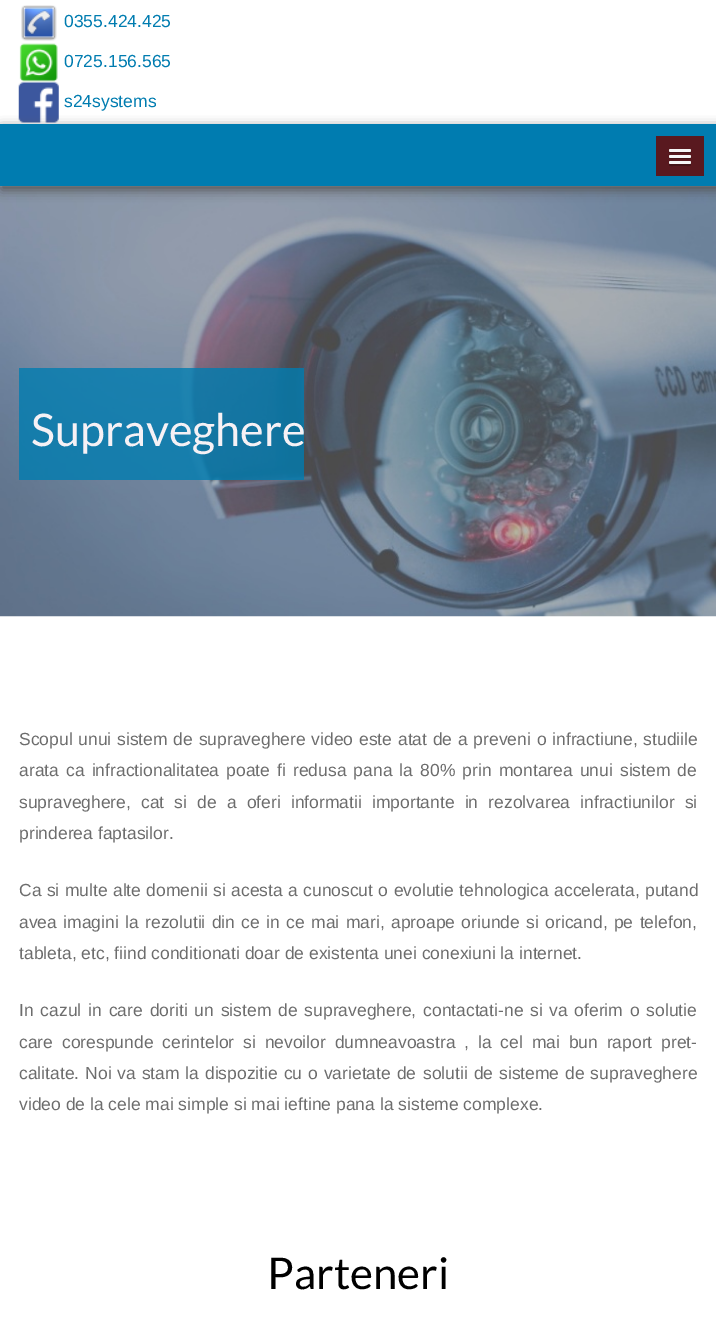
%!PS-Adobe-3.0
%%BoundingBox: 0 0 716 1324
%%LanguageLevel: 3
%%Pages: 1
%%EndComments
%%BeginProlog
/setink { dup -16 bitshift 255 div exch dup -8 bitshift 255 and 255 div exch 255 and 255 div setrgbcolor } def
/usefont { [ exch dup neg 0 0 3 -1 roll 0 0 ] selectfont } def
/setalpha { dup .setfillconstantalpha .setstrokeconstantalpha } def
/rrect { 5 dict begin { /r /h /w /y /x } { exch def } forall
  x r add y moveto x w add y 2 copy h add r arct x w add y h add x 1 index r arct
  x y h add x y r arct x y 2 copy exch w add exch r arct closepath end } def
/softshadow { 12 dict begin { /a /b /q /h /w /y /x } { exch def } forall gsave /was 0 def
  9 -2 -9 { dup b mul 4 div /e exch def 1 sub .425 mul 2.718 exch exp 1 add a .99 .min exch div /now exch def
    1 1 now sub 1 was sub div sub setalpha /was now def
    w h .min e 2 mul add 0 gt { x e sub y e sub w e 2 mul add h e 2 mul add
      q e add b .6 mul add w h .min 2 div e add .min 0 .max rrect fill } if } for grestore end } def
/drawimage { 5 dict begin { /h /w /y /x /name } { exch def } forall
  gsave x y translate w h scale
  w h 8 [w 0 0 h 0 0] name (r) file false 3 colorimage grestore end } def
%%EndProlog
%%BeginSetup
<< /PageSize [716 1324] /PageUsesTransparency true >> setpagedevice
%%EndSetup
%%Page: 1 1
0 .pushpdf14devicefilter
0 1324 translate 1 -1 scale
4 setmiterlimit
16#FFFFFF setink
0 0 716 1324 rectfill
(img1.raw) 21 5 36 36 drawimage
/LiberationSans-Regular 17.5 usefont
16#007CB0 setink
64 27 moveto (0355.424.425) show
(img2.raw) 19 43 39 39 drawimage
64 67 moveto (0725.156.565) show
(img3.raw) 18 82 41 41 drawimage
64 107 moveto (s24systems) show
(img4.raw) 0 186 716 431 drawimage
16#545454 setink
1 128 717 62 0 5.5 1 softshadow
16#007CB0 setink
0 124 716 62 rectfill
16#59191F setink
656 136 48 40 rectfill
16#431317 setink
669 151 moveto 668 153.5 673 153 673.5 153 curveto 686.5 153 lineto 687 153 692 153.5 691 151 curveto 690 151.5 670 151.5 669 151 curveto closepath fill
16#F5F5F5 setink
669 149 22 3 1.5 rrect fill
16#431317 setink
669 157 moveto 668.5 159.5 673 159 673.5 159 curveto 686.5 159 lineto 687 159 691.5 159.5 691 157 curveto 690 158 670 158 669 157 curveto closepath fill
16#F5F5F5 setink
669 155 22 3 1.5 rrect fill
16#431317 setink
669.5 163.5 moveto 669 165 lineto 669.5 166.5 672.5 166 673.5 166 curveto 686.5 166 lineto 687.5 166 690.5 166.5 691 165 curveto 690.5 163.5 lineto closepath fill
16#F5F5F5 setink
669 161 22 3 1.5 rrect fill
0.8 setalpha
16#007CB0 setink
19 368 285 112 rectfill
/Lato-Regular 45 usefont
1 setalpha
16#F6F1F5 setink
31 446 moveto (Supraveghere) show
/LiberationSans-Regular 17.5 usefont
16#6D6D6D setink
19 745 moveto 0.9 0 32 (Scopul unui sistem de supraveghere video este atat de a preveni o infractiune, studiile) widthshow
19 776 moveto 2.25 0 32 (arata ca infractionalitatea poate fi redusa pana la 80% prin montarea unui sistem de) widthshow
19 808 moveto 5.25 0 32 (supraveghere, cat si de a oferi informatii importante in rezolvarea infractiunilor si) widthshow
19 839 moveto (prinderea faptasilor.) show
19 896 moveto 0.5 0 32 (Ca si multe alte domenii si acesta a cunoscut o evolutie tehnologica accelerata, putand) widthshow
19 928 moveto 1.5 0 32 (avea imagini la rezolutii din ce in ce mai mari, aproape oriunde si oricand, pe telefon,) widthshow
19 959 moveto (tableta, etc, fiind conditionati doar de existenta unei conexiuni la internet.) show
19 1016 moveto 2 0 32 (In cazul in care doriti un sistem de supraveghere, contactati-ne si) widthshow
549 1016 moveto 2 0 32 (va oferim o solutie) widthshow
19 1048 moveto 4 0 32 (care corespunde cerintelor si nevoilor dumneavoastra , la cel mai bun raport pret-) widthshow
19 1079 moveto 1 0 32 (calitate. Noi va stam la dispozitie cu o varietate de) widthshow
423 1079 moveto 1 0 32 (solutii de sisteme de supraveghere) widthshow
19 1110 moveto (video de la cele mai simple si mai ieftine pana la sisteme complexe.) show
/Lato-Regular 43.75 usefont
16#000000 setink
267 1289 moveto (Parteneri) show
.poppdf14devicefilter showpage
%%EOF
